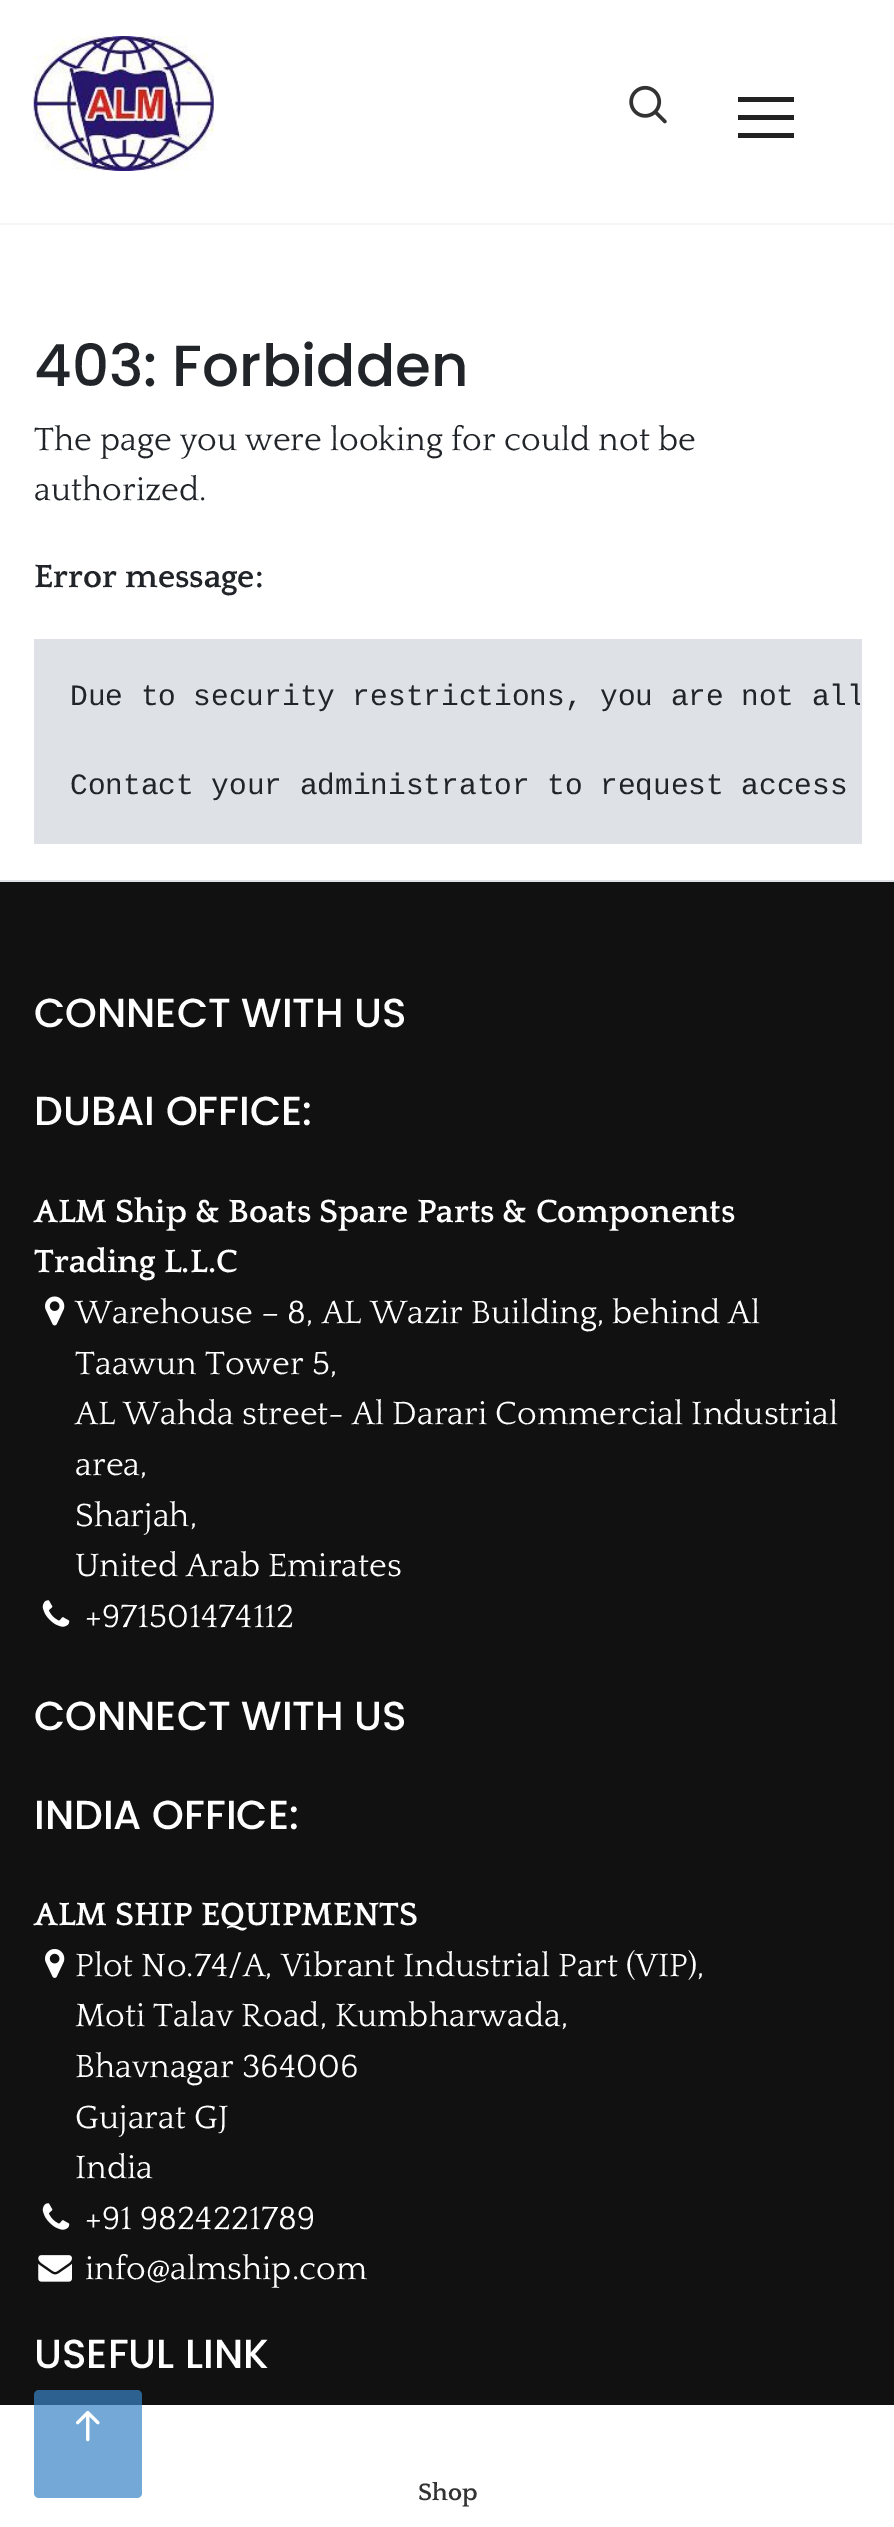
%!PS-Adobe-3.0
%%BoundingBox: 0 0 894 2527
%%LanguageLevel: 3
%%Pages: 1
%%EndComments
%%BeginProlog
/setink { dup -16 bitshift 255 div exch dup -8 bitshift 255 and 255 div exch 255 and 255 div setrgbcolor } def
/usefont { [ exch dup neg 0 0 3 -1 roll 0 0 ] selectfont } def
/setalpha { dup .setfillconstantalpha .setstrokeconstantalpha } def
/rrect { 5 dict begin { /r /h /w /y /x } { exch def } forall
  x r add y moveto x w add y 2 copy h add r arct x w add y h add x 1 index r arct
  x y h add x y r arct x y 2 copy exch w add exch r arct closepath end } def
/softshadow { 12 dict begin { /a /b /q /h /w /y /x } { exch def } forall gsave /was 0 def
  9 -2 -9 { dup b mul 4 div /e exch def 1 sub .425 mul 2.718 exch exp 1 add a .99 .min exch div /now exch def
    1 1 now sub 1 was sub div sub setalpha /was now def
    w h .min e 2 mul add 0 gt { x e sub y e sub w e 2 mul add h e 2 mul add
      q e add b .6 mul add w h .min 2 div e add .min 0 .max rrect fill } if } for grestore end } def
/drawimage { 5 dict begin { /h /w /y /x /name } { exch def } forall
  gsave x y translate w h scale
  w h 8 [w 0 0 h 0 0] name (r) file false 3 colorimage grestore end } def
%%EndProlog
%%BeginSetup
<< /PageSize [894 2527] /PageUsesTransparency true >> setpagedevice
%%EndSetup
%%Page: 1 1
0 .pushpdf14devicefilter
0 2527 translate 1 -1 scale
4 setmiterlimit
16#FFFFFF setink
0 0 894 2527 rectfill
16#F5F5F5 setink
0 223 894 2 rectfill
(img1.raw) 33 36 181 135 drawimage
(img2.raw) 629 85 38 39 drawimage
[
    [738 97 56 5 16#222222]
    [738 115 56 5 16#222222]
    [738 133 56 5 16#222222]
] { aload pop setink rectfill } forall
/Poppins-Medium 58 usefont
16#212529 setink
34 386 moveto (403: Forbidden) show
/Quattrocento-Regular 33.75 usefont
34 450 moveto (The page you were looking for could not be) show
34 500 moveto (authorized.) show
/Quattrocento-Bold 33.75 usefont
34 587 moveto (Error message:) show
16#DEE2E6 setink
34 639 828 205 rectfill
gsave
36 641 824 201 rectclip
/LiberationMono-Regular 29.5 usefont
16#212529 setink
70 705 moveto -0.25 0 32 (Due to security restrictions, you are not all) widthshow
grestore
/LiberationMono-Regular 29.5 usefont
16#212529 setink
70 794 moveto -0.25 0 32 (Contact your administrator to request access) widthshow
16#111111 setink
0 882 894 1523 rectfill
16#DEE2E6 setink
0 880 894 2 rectfill
/Poppins-Medium 40.5 usefont
16#FFFFFF setink
34 1027 moveto (CONNECT WITH US) show
34 1125 moveto (DUBAI OFFICE:) show
/Quattrocento-Bold 33.75 usefont
34 1222 moveto (ALM Ship & Boats Spare Parts & Components) show
34 1272 moveto (Trading L.L.C) show
(img3.raw) 45 1296 20 30 drawimage
/Quattrocento-Regular 33.75 usefont
[
    [(Warehouse – 8, AL Wazir Building, behind Al) 75 1323]
    [(Taawun Tower 5,) 75 1374]
    [(AL Wahda street- Al Darari Commercial Industrial) 75 1424]
    [(area,) 75 1475]
    [(Sharjah,) 75 1526]
    [(United Arab Emirates) 75 1576]
] { aload pop moveto show } forall
(img4.raw) 42 1600 28 27 drawimage
85 1627 moveto (+971501474112) show
/Poppins-Medium 40.5 usefont
34 1730 moveto (CONNECT WITH US) show
34 1829 moveto (INDIA OFFICE:) show
/Quattrocento-Bold 33.75 usefont
34 1925 moveto (ALM SHIP EQUIPMENTS) show
(img5.raw) 45 1949 20 29 drawimage
/Quattrocento-Regular 33.75 usefont
[
    [(Plot No.74/A, Vibrant Industrial Part \(VIP\),) 75 1976]
    [(Moti Talav Road, Kumbharwada,) 75 2026]
    [(Bhavnagar 364006) 75 2077]
    [(Gujarat GJ) 75 2128]
    [(India) 75 2178]
] { aload pop moveto show } forall
(img4.raw) 42 2203 28 27 drawimage
85 2229 moveto (+91 9824221789) show
(img6.raw) 38 2255 34 27 drawimage
85 2279 moveto (info@almship.com) show
/Poppins-Medium 40.5 usefont
34 2368 moveto (USEFUL LINK) show
16#000000 setink
0 2405 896 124 0 10 0.12 softshadow
16#FFFFFF setink
0 2405 894 122 rectfill
0.7 setalpha
16#3984C6 setink
34 2390 108 108 5 rrect fill
1 setalpha
(img7.raw) 76 2410 24 32 drawimage
gsave
34 2482 828 25 rectclip
/Quattrocento-Bold 25 usefont
16#333333 setink
418 2500 moveto (Shop) show
grestore
.poppdf14devicefilter showpage
%%EOF
